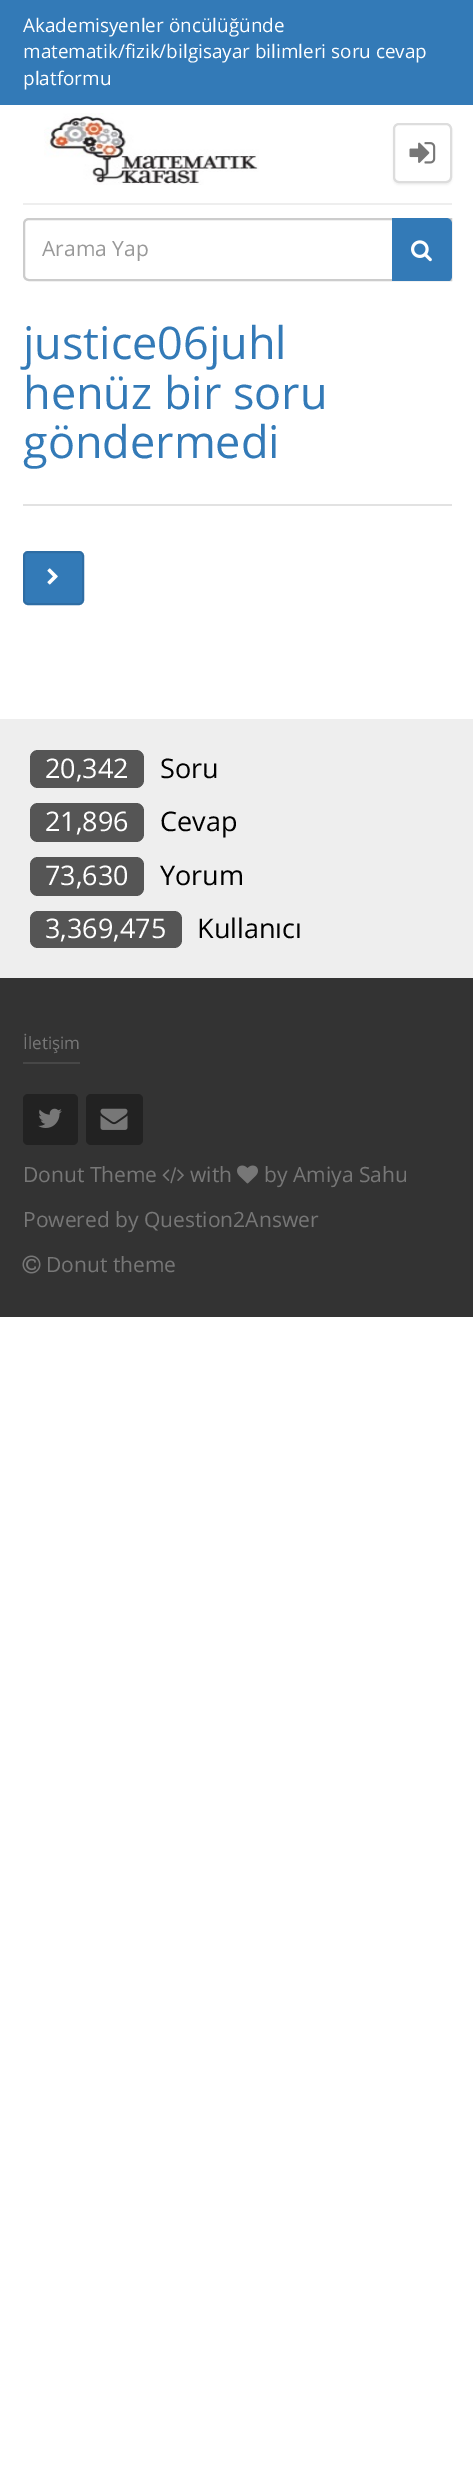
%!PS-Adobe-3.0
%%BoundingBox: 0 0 473 2478
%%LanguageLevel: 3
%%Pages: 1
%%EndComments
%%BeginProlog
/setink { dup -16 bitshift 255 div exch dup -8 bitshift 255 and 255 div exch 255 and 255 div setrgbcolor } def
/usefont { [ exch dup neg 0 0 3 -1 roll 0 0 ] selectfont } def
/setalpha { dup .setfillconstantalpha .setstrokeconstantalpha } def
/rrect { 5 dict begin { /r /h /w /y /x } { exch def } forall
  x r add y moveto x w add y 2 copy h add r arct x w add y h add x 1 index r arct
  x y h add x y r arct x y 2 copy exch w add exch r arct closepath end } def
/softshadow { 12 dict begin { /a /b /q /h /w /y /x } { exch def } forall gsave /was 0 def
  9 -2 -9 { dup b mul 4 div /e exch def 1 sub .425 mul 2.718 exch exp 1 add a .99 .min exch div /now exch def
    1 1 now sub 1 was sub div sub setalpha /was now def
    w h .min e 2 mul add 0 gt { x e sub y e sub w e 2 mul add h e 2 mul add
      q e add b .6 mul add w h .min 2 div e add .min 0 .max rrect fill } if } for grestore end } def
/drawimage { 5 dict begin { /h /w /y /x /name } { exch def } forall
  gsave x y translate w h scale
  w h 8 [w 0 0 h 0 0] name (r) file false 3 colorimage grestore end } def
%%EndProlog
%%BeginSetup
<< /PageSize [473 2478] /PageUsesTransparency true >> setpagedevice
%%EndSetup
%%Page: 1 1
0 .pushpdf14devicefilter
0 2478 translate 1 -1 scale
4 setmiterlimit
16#FFFFFF setink
0 0 473 2478 rectfill
16#337AB7 setink
0 0 473 105 rectfill
/OpenSans-Regular 18.9 usefont
16#FFFFFF setink
[
    [(Akademisyenler öncülüğünde) 23 32]
    [(matematik/fizik/bilgisayar bilimleri soru cevap) 23 58]
    [(platformu) 23 85]
] { aload pop moveto show } forall
(img1.raw) 44 113 215 72 drawimage
16#000000 setink
393 125 59 60 6 1 0.05 softshadow
16#FFFFFF setink
394 124 57 58 5 rrect gsave fill grestore
16#DDDDDD setink
2 setlinewidth
stroke
(img2.raw) 409 142 27 22 drawimage
16#EEEEEE setink
23 203 429 2 rectfill
16#CCCCCC setink
29 219 moveto 451 219 lineto 451 280 lineto 29 280 lineto 26 280 24 278 24 275 curveto 24 224 lineto 24 221 26 219 29 219 curveto closepath stroke
/OpenSans-Regular 21 usefont
16#999999 setink
42 256 moveto (Arama Yap) show
gsave
23 218 429 63 rectclip
16#337AB7 setink
392 218 moveto 446 218 lineto 449.5 218 452 220.5 452 224 curveto 452 276 lineto 452 279.5 449.5 282 446 282 curveto 392 282 lineto closepath fill
grestore
(img3.raw) 411 240 21 22 drawimage
16#E2E2E2 setink
23 504 429 2 rectfill
/OpenSans-Regular 45 usefont
16#337AB7 setink
[
    [(justice06juhl) 23 359]
    [(henüz bir soru) 23 409]
    [(göndermedi) 23 458]
] { aload pop moveto show } forall
24 552 59 52 4 rrect gsave fill grestore
16#2E6DA4 setink
stroke
(img4.raw) 47 568 11 17 drawimage
16#EEEEEE setink
0 719 473 259 rectfill
16#555555 setink
30 750 114 38 8 rrect fill
/OpenSans-Regular 27 usefont
16#FFFFFF setink
45 778 moveto (20,342) show
16#000000 setink
160 778 moveto (Soru) show
16#555555 setink
30 803 114 39 8 rrect fill
16#FFFFFF setink
45 831 moveto (21,896) show
16#000000 setink
160 831 moveto (Cevap) show
16#555555 setink
30 857 114 39 8 rrect fill
16#FFFFFF setink
45 885 moveto (73,630) show
16#000000 setink
160 885 moveto (Yorum) show
16#555555 setink
30 911 152 37 8 rrect fill
16#FFFFFF setink
45 938 moveto (3,369,475) show
16#000000 setink
197 938 moveto (Kullanıcı) show
16#333333 setink
0 978 473 339 rectfill
16#474747 setink
23 1062 57 2 rectfill
/OpenSans-Regular 17 usefont
16#777777 setink
23 1049 moveto (İletişim) show
16#222222 setink
23 1094 55 51 5 rrect fill
(img5.raw) 38 1108 24 20 drawimage
86 1094 57 51 5 rrect fill
(img6.raw) 100 1108 28 22 drawimage
/OpenSans-Regular 21 usefont
16#777777 setink
23 1182 moveto (Donut Theme) show
(img7.raw) 162 1167 22 17 drawimage
190 1182 moveto (with) show
(img8.raw) 237 1165 21 19 drawimage
264 1182 moveto (by Amiya Sahu) show
23 1227 moveto (Powered by Question2Answer) show
(img9.raw) 22 1255 19 19 drawimage
46 1272 moveto (Donut theme) show
.poppdf14devicefilter showpage
%%EOF
